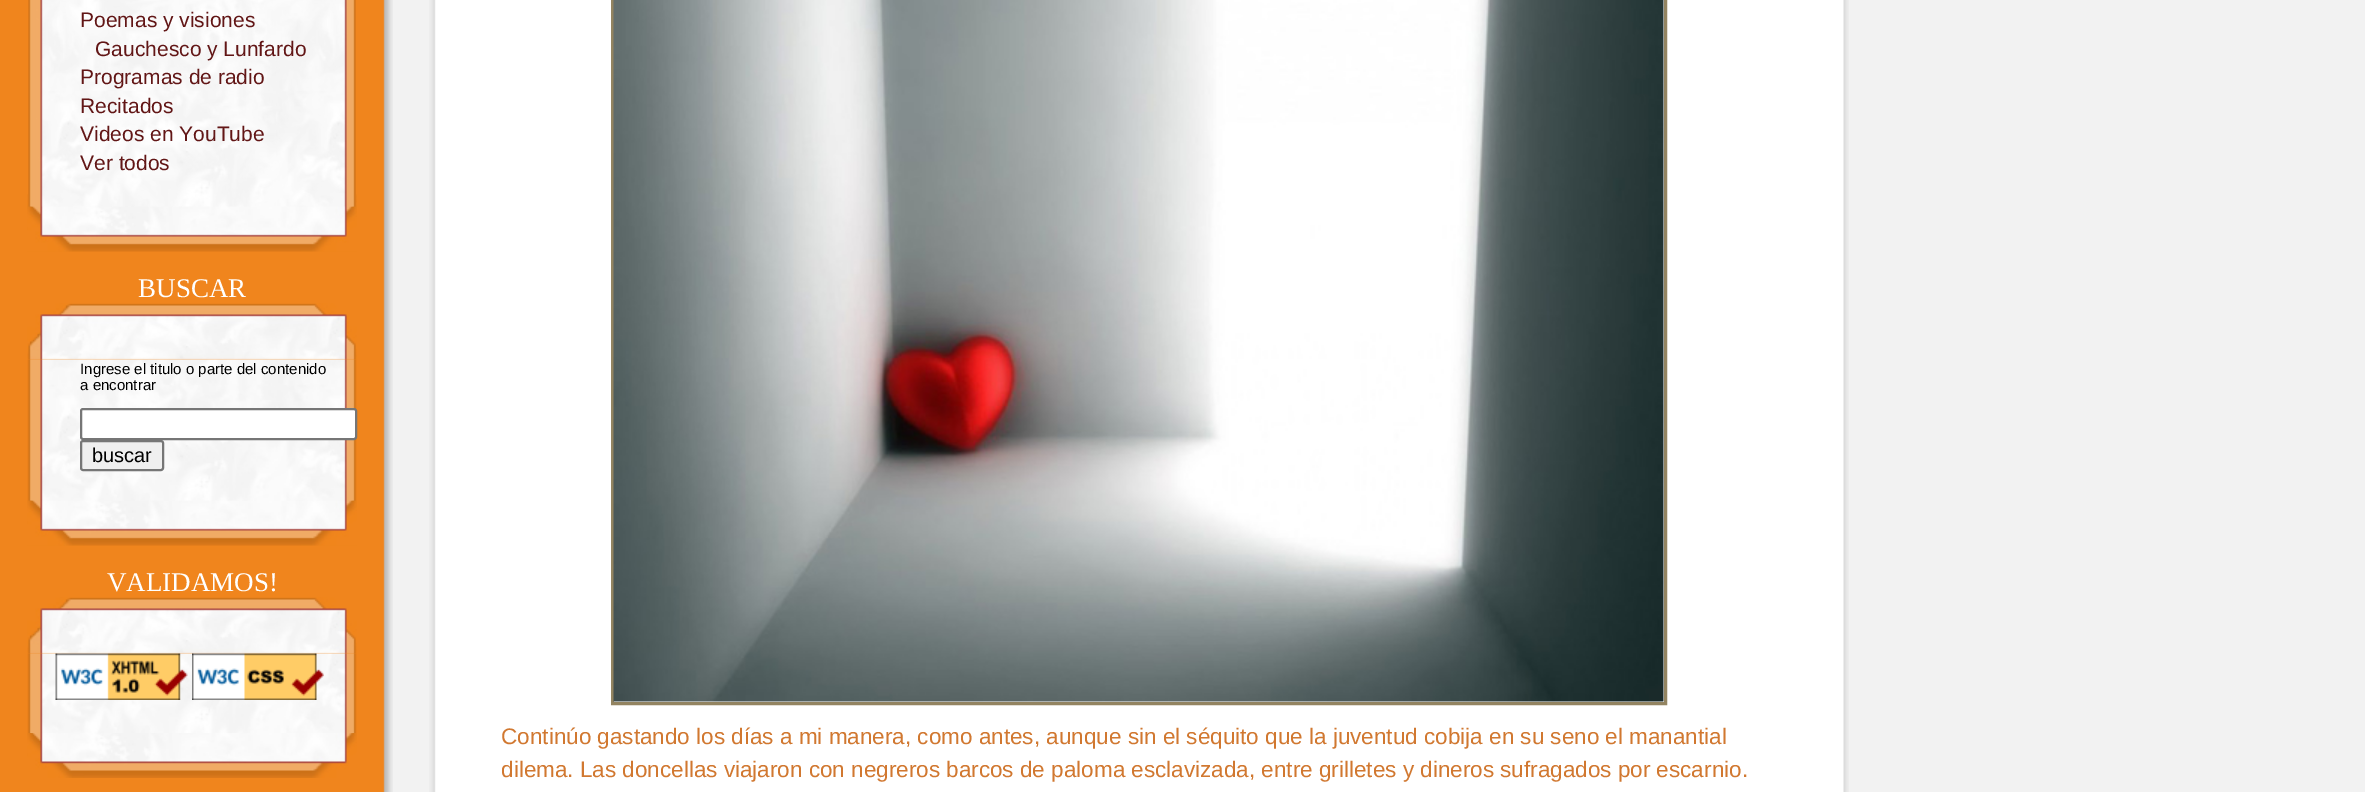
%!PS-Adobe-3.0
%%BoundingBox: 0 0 2365 792
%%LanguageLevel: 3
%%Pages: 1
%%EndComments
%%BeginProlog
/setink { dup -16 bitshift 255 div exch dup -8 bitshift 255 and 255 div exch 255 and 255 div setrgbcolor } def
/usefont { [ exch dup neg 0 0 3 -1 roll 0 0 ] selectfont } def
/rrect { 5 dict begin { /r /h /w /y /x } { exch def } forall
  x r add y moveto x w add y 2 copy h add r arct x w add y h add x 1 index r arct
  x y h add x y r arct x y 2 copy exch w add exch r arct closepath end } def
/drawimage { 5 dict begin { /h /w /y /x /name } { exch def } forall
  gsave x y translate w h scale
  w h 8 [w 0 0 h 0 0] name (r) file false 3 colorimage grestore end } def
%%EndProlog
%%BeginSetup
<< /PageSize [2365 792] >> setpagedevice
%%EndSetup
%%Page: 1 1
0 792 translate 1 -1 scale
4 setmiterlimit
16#F2F2F2 setink
0 0 2365 792 rectfill
(img1.raw) 0 0 393 792 drawimage
(img2.raw) 27 194 330 58 drawimage
(img3.raw) 28 0 328 207 drawimage
/LiberationSans-Regular 21 usefont
16#621616 setink
[
    [(Poemas y visiones) 80 27]
    [(Gauchesco y Lunfardo) 95 56]
    [(Programas de radio) 80 84]
    [(Recitados) 80 113]
    [(Videos en YouTube) 80 141]
    [(Ver todos) 80 170]
] { aload pop moveto show } forall
(img4.raw) 27 500 330 46 drawimage
(img5.raw) 27 303 330 57 drawimage
/LiberationSerif-Regular 27 usefont
16#FFFFFF setink
138 297 moveto (BUSCAR) show
(img6.raw) 27 359 330 142 drawimage
/LiberationSans-Regular 15 usefont
16#000000 setink
80 374 moveto (Ingrese el titulo o parte del contenido) show
80 390 moveto (a encontrar) show
16#FFFFFF setink
81 409 275 30 2 rrect gsave fill grestore
16#767676 setink
2 setlinewidth
stroke
16#EFEFEF setink
81 441 82 29 2 rrect gsave fill grestore
16#767676 setink
stroke
/LiberationSans-Regular 20 usefont
16#000000 setink
92 462 moveto (buscar) show
(img7.raw) 27 733 330 45 drawimage
(img5.raw) 27 597 330 57 drawimage
/LiberationSerif-Regular 27 usefont
16#FFFFFF setink
107 591 moveto (VALIDAMOS!) show
(img8.raw) 27 653 330 80 drawimage
(img9.raw) 55 653 133 47 drawimage
(img10.raw) 192 653 132 47 drawimage
(img11.raw) 429 0 1420 792 drawimage
16#938461 setink
3 setlinewidth
612.5 -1.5 1053 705 rectstroke
(img12.raw) 613 0 1051 702 drawimage
/LiberationSans-Regular 22.5 usefont
16#D17830 setink
501 744 moveto (Continúo gastando los días a mi manera, como antes, aunque sin el séquito que la juventud cobija en su seno el manantial) show
501 777 moveto (dilema. Las doncellas viajaron con negreros barcos de paloma esclavizada, entre grilletes y dineros sufragados por escarnio.) show
showpage
%%EOF
